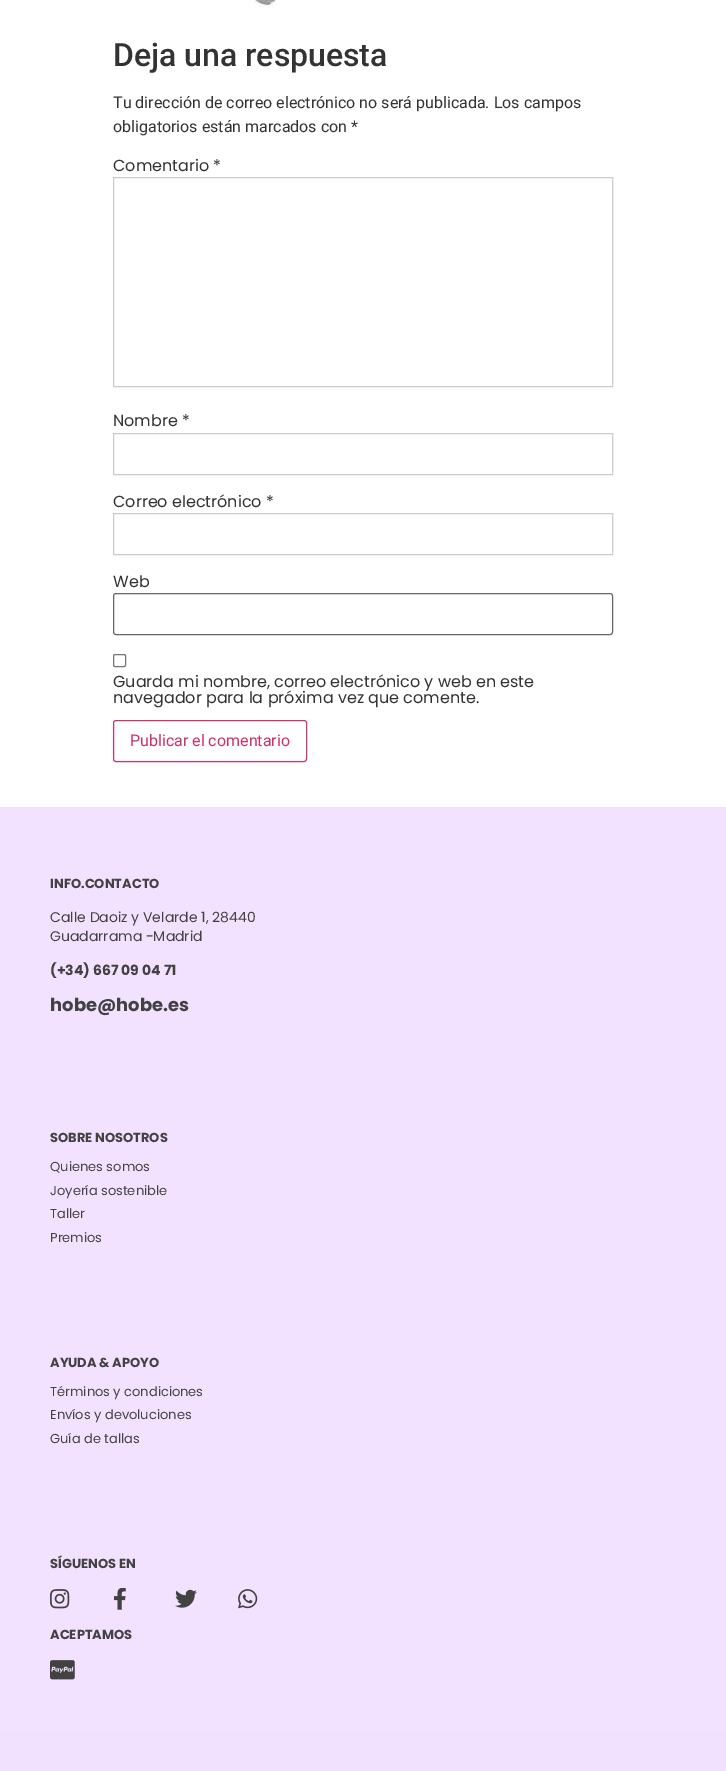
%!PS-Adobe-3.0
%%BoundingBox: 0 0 726 1771
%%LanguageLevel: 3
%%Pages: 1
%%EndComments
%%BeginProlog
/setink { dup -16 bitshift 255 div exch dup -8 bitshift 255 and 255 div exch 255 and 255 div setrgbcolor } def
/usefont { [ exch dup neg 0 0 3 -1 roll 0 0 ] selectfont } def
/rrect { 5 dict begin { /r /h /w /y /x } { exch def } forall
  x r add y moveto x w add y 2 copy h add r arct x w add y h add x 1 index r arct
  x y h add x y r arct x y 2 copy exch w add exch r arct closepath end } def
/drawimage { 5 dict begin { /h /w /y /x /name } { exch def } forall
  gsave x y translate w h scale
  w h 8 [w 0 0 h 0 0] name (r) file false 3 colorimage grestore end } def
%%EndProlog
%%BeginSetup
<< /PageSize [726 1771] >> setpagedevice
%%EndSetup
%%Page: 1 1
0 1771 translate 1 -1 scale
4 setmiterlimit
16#FFFFFF setink
0 0 726 1771 rectfill
(img1.raw) 253 0 24 7 drawimage
/Roboto-Medium 32 usefont
16#333333 setink
113 66 moveto (Deja una respuesta) show
/Roboto-Regular 16 usefont
113 108 moveto (Tu dirección de correo electrónico no será publicada. Los campos) show
113 132 moveto (obligatorios están marcados con *) show
/Poppins-Regular 16 usefont
113 171 moveto (Comentario *) show
16#CCCCCC setink
113.5 177.5 499 209 rectstroke
16#333333 setink
113 426 moveto (Nombre *) show
16#CCCCCC setink
113.5 433.5 499 41 rectstroke
16#333333 setink
113 507 moveto (Correo electrónico *) show
16#CCCCCC setink
113.5 513.5 499 41 rectstroke
16#333333 setink
113 587 moveto (Web) show
16#666666 setink
113.5 593.5 499 41 2.5 rrect stroke
16#767676 setink
113.5 654.5 12 12 1.5 rrect stroke
16#333333 setink
113 687 moveto (Guarda mi nombre, correo electrónico y web en este) show
113 703 moveto (navegador para la próxima vez que comente.) show
16#CC3366 setink
113.5 720.5 193 41 2.5 rrect stroke
/Roboto-Regular 16 usefont
130 746 moveto (Publicar el comentario) show
16#F3E2FF setink
0 807 726 924 rectfill
/Poppins-Bold 13 usefont
16#424242 setink
50 888 moveto (INFO.CONTACTO) show
/Poppins-Regular 14 usefont
50 922 moveto (Calle Daoiz y Velarde 1, 28440) show
50 941 moveto (Guadarrama -Madrid) show
/Poppins-Bold 14 usefont
50 975 moveto (\(+34\) 667 09 04 71) show
/Poppins-Bold 18 usefont
50 1011 moveto (hobe@hobe.es) show
/Poppins-Bold 13 usefont
50 1142 moveto (SOBRE NOSOTROS) show
/Poppins-Regular 13 usefont
[
    [(Quienes somos) 50 1171]
    [(Joyería sostenible) 50 1195]
    [(Taller) 50 1218]
    [(Premios) 50 1242]
] { aload pop moveto show } forall
/Poppins-Bold 13 usefont
50 1367 moveto (AYUDA & APOYO) show
/Poppins-Regular 13 usefont
[
    [(Términos y condiciones) 50 1396]
    [(Envíos y devoluciones) 50 1419]
    [(Guía de tallas) 50 1443]
] { aload pop moveto show } forall
/Poppins-Bold 13 usefont
50 1568 moveto (SÍGUENOS EN) show
(img2.raw) 50 1589 20 20 drawimage
(img3.raw) 114 1588 12 22 drawimage
(img4.raw) 175 1589 22 19 drawimage
(img5.raw) 238 1589 20 20 drawimage
50 1639 moveto (ACEPTAMOS) show
(img6.raw) 50 1660 25 20 drawimage
16#F2E1FE setink
0 1731 726 40 rectfill
showpage
%%EOF
